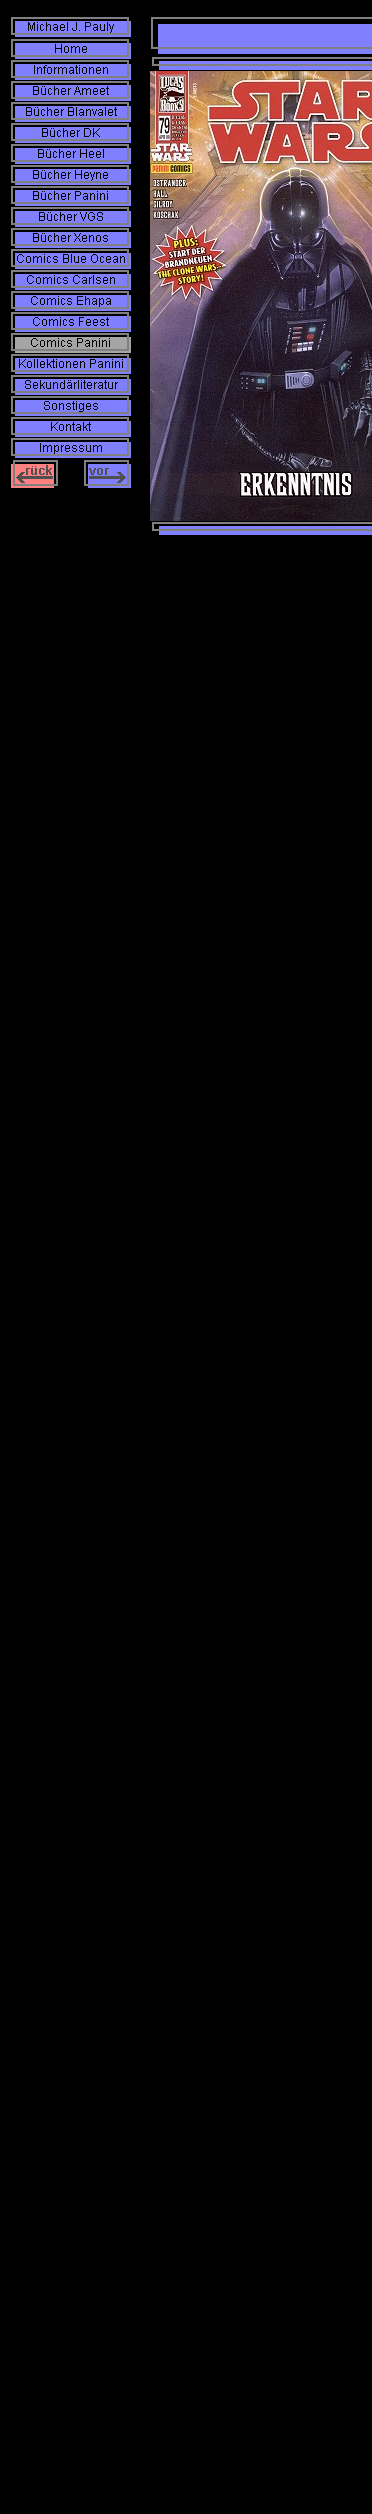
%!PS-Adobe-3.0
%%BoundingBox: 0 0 372 2514
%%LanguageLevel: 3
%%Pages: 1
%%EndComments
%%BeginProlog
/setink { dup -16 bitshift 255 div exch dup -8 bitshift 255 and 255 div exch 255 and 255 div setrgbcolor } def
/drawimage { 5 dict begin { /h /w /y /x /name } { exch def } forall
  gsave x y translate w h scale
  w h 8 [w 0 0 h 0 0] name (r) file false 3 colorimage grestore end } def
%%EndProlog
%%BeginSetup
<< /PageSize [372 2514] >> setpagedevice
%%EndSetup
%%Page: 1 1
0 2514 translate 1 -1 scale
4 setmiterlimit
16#000000 setink
0 0 372 2514 rectfill
(img1.raw) 11 17 120 20 drawimage
(img2.raw) 11 39 120 20 drawimage
(img3.raw) 11 60 120 20 drawimage
(img4.raw) 11 81 120 20 drawimage
(img5.raw) 11 102 120 20 drawimage
(img6.raw) 11 123 120 20 drawimage
(img7.raw) 11 144 120 20 drawimage
(img8.raw) 11 165 120 20 drawimage
(img9.raw) 11 186 120 20 drawimage
(img10.raw) 11 207 120 20 drawimage
(img11.raw) 11 228 120 20 drawimage
(img12.raw) 11 249 120 20 drawimage
(img13.raw) 11 270 120 20 drawimage
(img14.raw) 11 291 120 20 drawimage
(img15.raw) 11 312 120 20 drawimage
(img16.raw) 11 333 120 20 drawimage
(img17.raw) 11 354 120 20 drawimage
(img18.raw) 11 375 120 20 drawimage
(img19.raw) 11 396 120 20 drawimage
(img20.raw) 11 417 120 20 drawimage
(img21.raw) 11 438 120 20 drawimage
(img22.raw) 11 460 47 28 drawimage
(img23.raw) 84 460 47 28 drawimage
(img24.raw) 151 17 221 37 drawimage
(img25.raw) 152 57 220 13 drawimage
(img26.raw) 150 71 222 450 drawimage
(img25.raw) 152 522 220 13 drawimage
showpage
%%EOF
